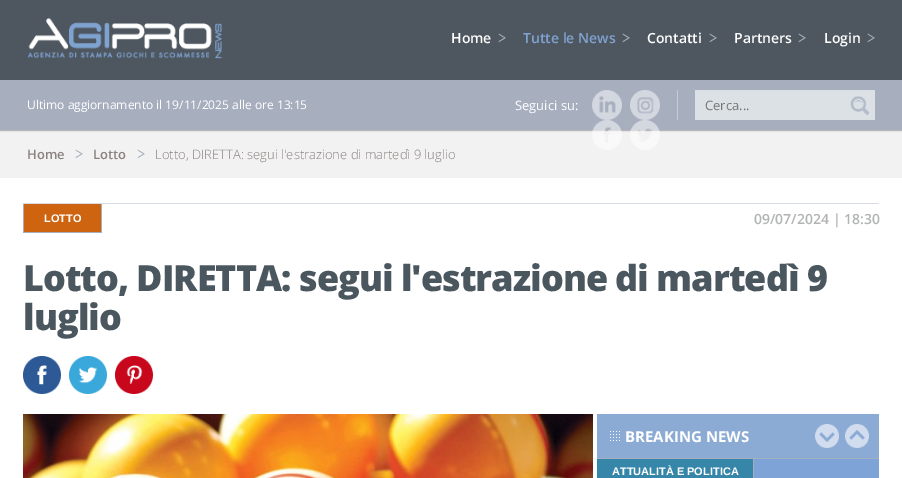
%!PS-Adobe-3.0
%%BoundingBox: 0 0 902 478
%%LanguageLevel: 3
%%Pages: 1
%%EndComments
%%BeginProlog
/setink { dup -16 bitshift 255 div exch dup -8 bitshift 255 and 255 div exch 255 and 255 div setrgbcolor } def
/usefont { [ exch dup neg 0 0 3 -1 roll 0 0 ] selectfont } def
/setalpha { dup .setfillconstantalpha .setstrokeconstantalpha } def
/rrect { 5 dict begin { /r /h /w /y /x } { exch def } forall
  x r add y moveto x w add y 2 copy h add r arct x w add y h add x 1 index r arct
  x y h add x y r arct x y 2 copy exch w add exch r arct closepath end } def
/softshadow { 12 dict begin { /a /b /q /h /w /y /x } { exch def } forall gsave /was 0 def
  9 -2 -9 { dup b mul 4 div /e exch def 1 sub .425 mul 2.718 exch exp 1 add a .99 .min exch div /now exch def
    1 1 now sub 1 was sub div sub setalpha /was now def
    w h .min e 2 mul add 0 gt { x e sub y e sub w e 2 mul add h e 2 mul add
      q e add b .6 mul add w h .min 2 div e add .min 0 .max rrect fill } if } for grestore end } def
/drawimage { 5 dict begin { /h /w /y /x /name } { exch def } forall
  gsave x y translate w h scale
  w h 8 [w 0 0 h 0 0] name (r) file false 3 colorimage grestore end } def
%%EndProlog
%%BeginSetup
<< /PageSize [902 478] /PageUsesTransparency true >> setpagedevice
%%EndSetup
%%Page: 1 1
0 .pushpdf14devicefilter
0 478 translate 1 -1 scale
4 setmiterlimit
16#FFFFFF setink
0 0 902 478 rectfill
16#F2F2F2 setink
0 130 902 48 rectfill
16#333333 setink
0 80 902 50 0 1 1 softshadow
16#4E5760 setink
0 0 902 80 rectfill
(img1.raw) 27 17 195 42 drawimage
/OpenSans-SemiBold 14 usefont
16#FFFFFF setink
451 43 moveto (Home) show
(img2.raw) 498 33 8 10 drawimage
16#7FA3D1 setink
523 43 moveto (Tutte le News) show
(img2.raw) 622 33 8 10 drawimage
16#FFFFFF setink
647 43 moveto (Contatti) show
(img2.raw) 709 33 8 10 drawimage
734 43 moveto (Partners) show
(img2.raw) 798 33 8 10 drawimage
824 43 moveto (Login) show
(img2.raw) 867 33 8 10 drawimage
16#A7AEBE setink
0 80 902 50 rectfill
/OpenSans-Regular 12 usefont
16#FFFFFF setink
27 109 moveto (Ultimo aggiornamento il 19/11/2025 alle ore 13:15) show
16#C5CCD5 setink
677 90 1 30 rectfill
/OpenSans-Regular 13 usefont
16#FFFFFF setink
515 110 moveto (Seguici su:) show
(img3.raw) 592 90 30 30 drawimage
(img4.raw) 630 90 30 30 drawimage
(img5.raw) 592 120 30 30 drawimage
(img6.raw) 630 120 30 30 drawimage
16#DCE1E6 setink
695 90 180 30 rectfill
16#757575 setink
705 110 moveto (Cerca...) show
(img7.raw) 850 96 20 19 drawimage
/OpenSans-SemiBold 13 usefont
16#8A8181 setink
27 159 moveto (Home) show
(img8.raw) 75 149 8 10 drawimage
93 159 moveto (Lotto) show
(img8.raw) 137 149 8 10 drawimage
/OpenSans-Light 13 usefont
155 159 moveto (Lotto, DIRETTA: segui l'estrazione di martedì 9 luglio) show
[
    [23 203 856 1 16#D8DCE3]
    [24 204 77 28 16#CF6410]
    [101 204 1 29 16#A4AFBD]
    [23 232 79 1 16#A4AFBD]
    [23 204 1 29 16#A4AFBD]
] { aload pop setink rectfill } forall
/LiberationSans-Bold 11 usefont
16#FFFFFF setink
44 222 moveto (LOTTO) show
/OpenSans-SemiBold 14 usefont
16#B2B3B3 setink
754 224 moveto (09/07/2024 | 18:30) show
/OpenSans-ExtraBold 36 usefont
16#4B575F setink
23 291 moveto -1 0 (Lotto, DIRETTA: segui l'estrazione di martedì 9) ashow
23 330 moveto -1 0 (luglio) ashow
(img9.raw) 23 356 38 38 drawimage
(img10.raw) 69 356 38 38 drawimage
(img11.raw) 115 356 38 38 drawimage
(img12.raw) 23 414 570 64 drawimage
16#7EA3D7 setink
754 459 125 19 rectfill
16#8BABD5 setink
597 414 282 44 rectfill
(img13.raw) 610 431 10 10 drawimage
16#A4AFBD setink
597 458 282 1 rectfill
/OpenSans-Bold 15 usefont
16#FFFFFF setink
625 442 moveto (BREAKING NEWS) show
(img14.raw) 815 424 24 24 drawimage
(img15.raw) 845 424 24 24 drawimage
16#3586A9 setink
597 459 156 19 rectfill
16#A4AFBD setink
753 459 1 19 rectfill
/LiberationSans-Bold 11 usefont
16#FFFFFF setink
612 475 moveto (ATTUALITÀ E POLITICA) show
.poppdf14devicefilter showpage
%%EOF
